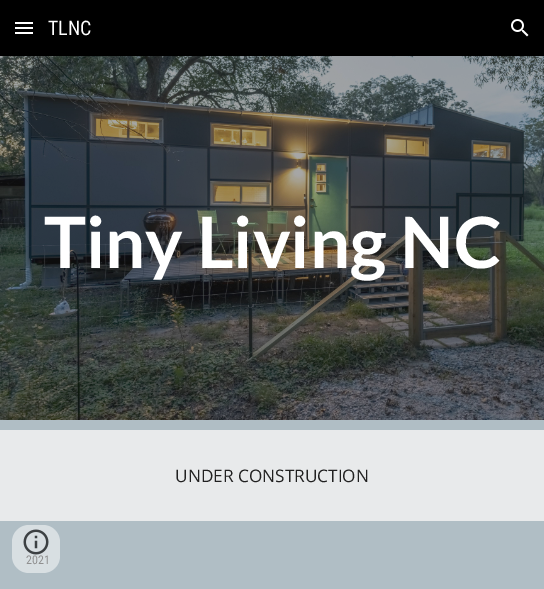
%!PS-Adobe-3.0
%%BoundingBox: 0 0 544 589
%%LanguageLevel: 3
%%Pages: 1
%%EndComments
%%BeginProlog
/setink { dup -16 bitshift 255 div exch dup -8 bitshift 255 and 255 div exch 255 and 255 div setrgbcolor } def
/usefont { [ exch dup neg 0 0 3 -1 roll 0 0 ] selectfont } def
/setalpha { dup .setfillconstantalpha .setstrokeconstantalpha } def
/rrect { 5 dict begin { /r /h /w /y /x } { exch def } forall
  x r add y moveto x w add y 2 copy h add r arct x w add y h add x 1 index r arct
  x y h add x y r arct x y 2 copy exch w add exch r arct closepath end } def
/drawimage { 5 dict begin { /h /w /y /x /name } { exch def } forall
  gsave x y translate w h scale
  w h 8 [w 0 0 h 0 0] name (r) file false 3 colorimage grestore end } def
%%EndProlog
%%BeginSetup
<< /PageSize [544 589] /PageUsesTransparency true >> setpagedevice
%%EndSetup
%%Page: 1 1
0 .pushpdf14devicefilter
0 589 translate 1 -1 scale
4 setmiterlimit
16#E8EAEB setink
0 0 544 589 rectfill
[
    [0 0 544 56 16#000000]
    [15 22 18 2 16#FFFFFF]
    [15 27 18 2 16#FFFFFF]
    [15 32 18 2 16#FFFFFF]
] { aload pop setink rectfill } forall
/RobotoCondensed-Regular 20 usefont
48 35 moveto (TLNC) show
(img1.raw) 511 19 18 18 drawimage
(img2.raw) 0 56 544 364 drawimage
16#B0BEC5 setink
0 420 544 10 rectfill
/Lato-Bold 70.75 usefont
16#FFFFFF setink
44 268 moveto (Tiny Living NC) show
/OpenSans-Regular 17.25 usefont
16#212121 setink
175 482 moveto (UNDER CONSTRUCTION) show
16#B0BEC5 setink
0 521 544 68 rectfill
/RobotoCondensed-Regular 12 usefont
16#212121 setink
26 564 moveto (2021) show
0.5 setalpha
16#FFFFFF setink
12 525 48 48 17 rrect fill
1 setalpha
(img3.raw) 23 529 26 26 drawimage
.poppdf14devicefilter showpage
%%EOF
